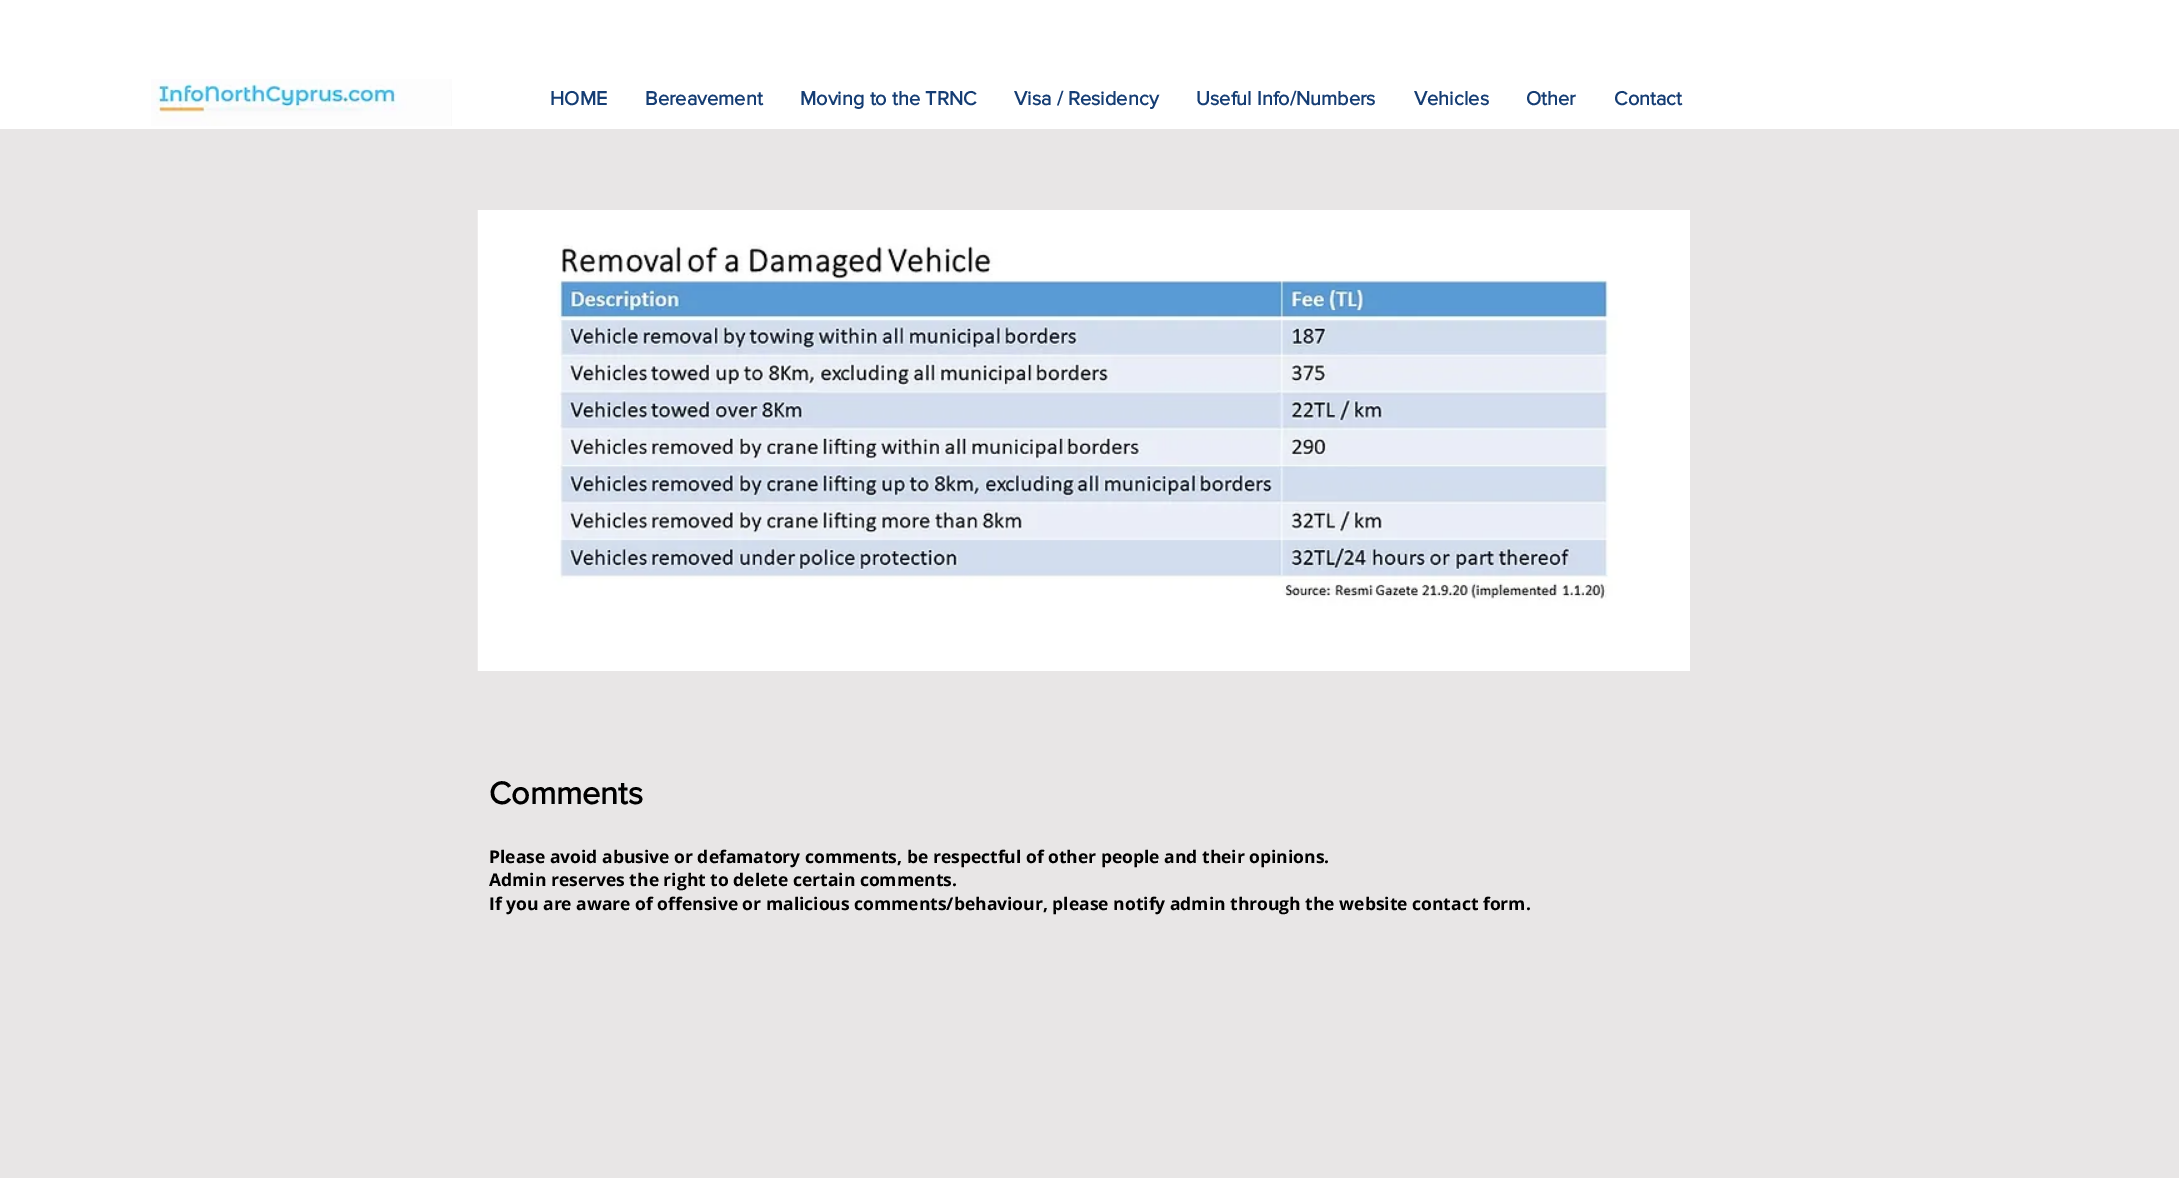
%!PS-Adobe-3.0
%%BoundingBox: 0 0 2179 1178
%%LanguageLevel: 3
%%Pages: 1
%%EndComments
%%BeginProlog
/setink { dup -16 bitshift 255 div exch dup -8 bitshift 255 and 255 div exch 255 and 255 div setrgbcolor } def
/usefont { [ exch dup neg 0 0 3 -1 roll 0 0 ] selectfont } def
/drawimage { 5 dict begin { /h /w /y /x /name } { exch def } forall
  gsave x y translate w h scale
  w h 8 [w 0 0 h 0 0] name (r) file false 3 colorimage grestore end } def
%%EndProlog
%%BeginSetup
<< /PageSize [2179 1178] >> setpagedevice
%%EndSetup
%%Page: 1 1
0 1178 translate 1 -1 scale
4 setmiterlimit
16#E8E6E6 setink
0 0 2179 1178 rectfill
16#FFFFFF setink
0 0 2179 129 rectfill
(img1.raw) 151 79 301 47 drawimage
/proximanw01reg-Bold 20 usefont
16#153D74 setink
[
    [(HOME) 550 105]
    [(Bereavement) 645 105]
    [(Moving to the TRNC) 800 105]
    [(Visa / Residency) 1014 105]
    [(Useful Info/Numbers) 1196 105]
    [(Vehicles) 1414 105]
    [(Other) 1526 105]
    [(Contact) 1614 105]
] { aload pop moveto show } forall
(img2.raw) 477 210 1213 461 drawimage
/proximanw01reg-Bold 32.5 usefont
16#000000 setink
489 804 moveto (Comments) show
/OpenSans-Bold 17.5 usefont
[
    [(Please avoid abusive or defamatory comments, be respectful of other people and their opinions.) 489 863]
    [(Admin reserves the right to delete certain comments.) 489 886]
    [(If you are aware of offensive or malicious comments/behaviour, please notify admin through the website contact form.) 489 910]
] { aload pop moveto show } forall
showpage
%%EOF
